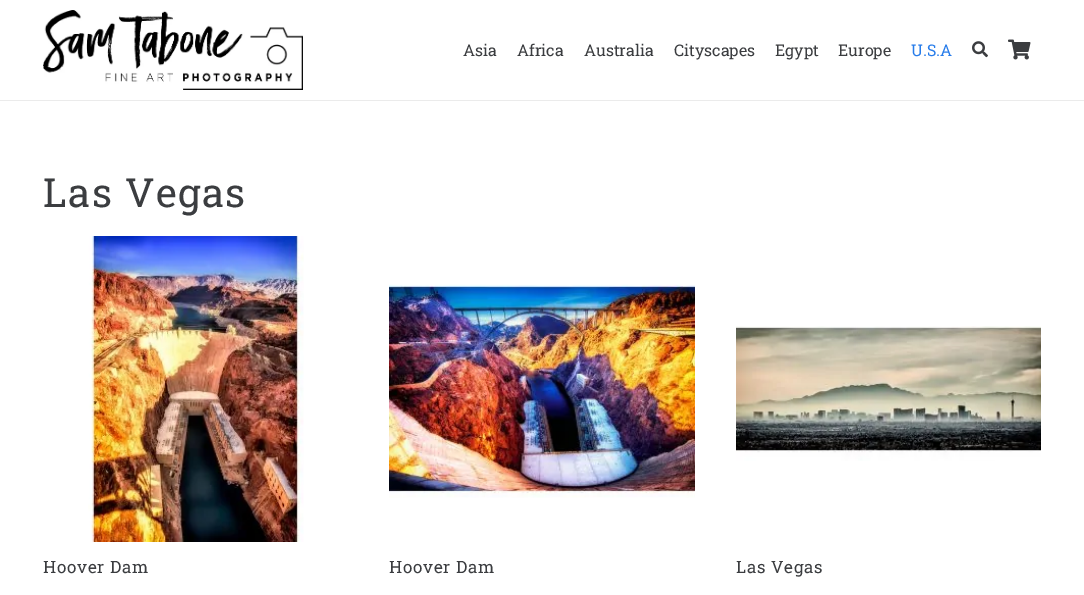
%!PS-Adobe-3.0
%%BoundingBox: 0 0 1084 595
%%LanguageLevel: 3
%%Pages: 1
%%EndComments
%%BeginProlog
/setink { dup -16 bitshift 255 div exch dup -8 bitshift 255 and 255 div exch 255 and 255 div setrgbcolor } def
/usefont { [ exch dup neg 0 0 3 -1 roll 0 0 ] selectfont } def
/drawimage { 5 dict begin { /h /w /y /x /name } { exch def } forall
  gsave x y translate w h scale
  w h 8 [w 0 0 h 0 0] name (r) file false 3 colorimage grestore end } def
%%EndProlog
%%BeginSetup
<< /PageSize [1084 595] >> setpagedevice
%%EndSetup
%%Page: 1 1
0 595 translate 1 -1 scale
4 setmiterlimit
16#FFFFFF setink
0 0 1084 595 rectfill
16#EBEBEB setink
0 100 1084 1 rectfill
(img1.raw) 43 10 260 80 drawimage
/RobotoSlab-Regular 16 usefont
16#3B3D40 setink
[
    [(Asia) 463 56]
    [(Africa) 517 56]
    [(Australia) 584 56]
    [(Cityscapes) 674 56]
    [(Egypt) 775 56]
    [(Europe) 838 56]
] { aload pop moveto show } forall
16#277CEA setink
911 56 moveto (U.S.A) show
(img2.raw) 972 41 16 17 drawimage
(img3.raw) 1008 39 23 21 drawimage
/RobotoSlab-Regular 40 usefont
16#3B3D40 setink
43 207 moveto 1.5 0 (Las Vegas) ashow
(img4.raw) 88 236 216 306 drawimage
/RobotoSlab-Regular 17 usefont
43 573 moveto 0.75 0 (Hoover Dam) ashow
(img5.raw) 389 284 306 214 drawimage
389 573 moveto 0.75 0 (Hoover Dam) ashow
(img6.raw) 736 326 305 135 drawimage
736 573 moveto 0.75 0 (Las Vegas) ashow
showpage
%%EOF
